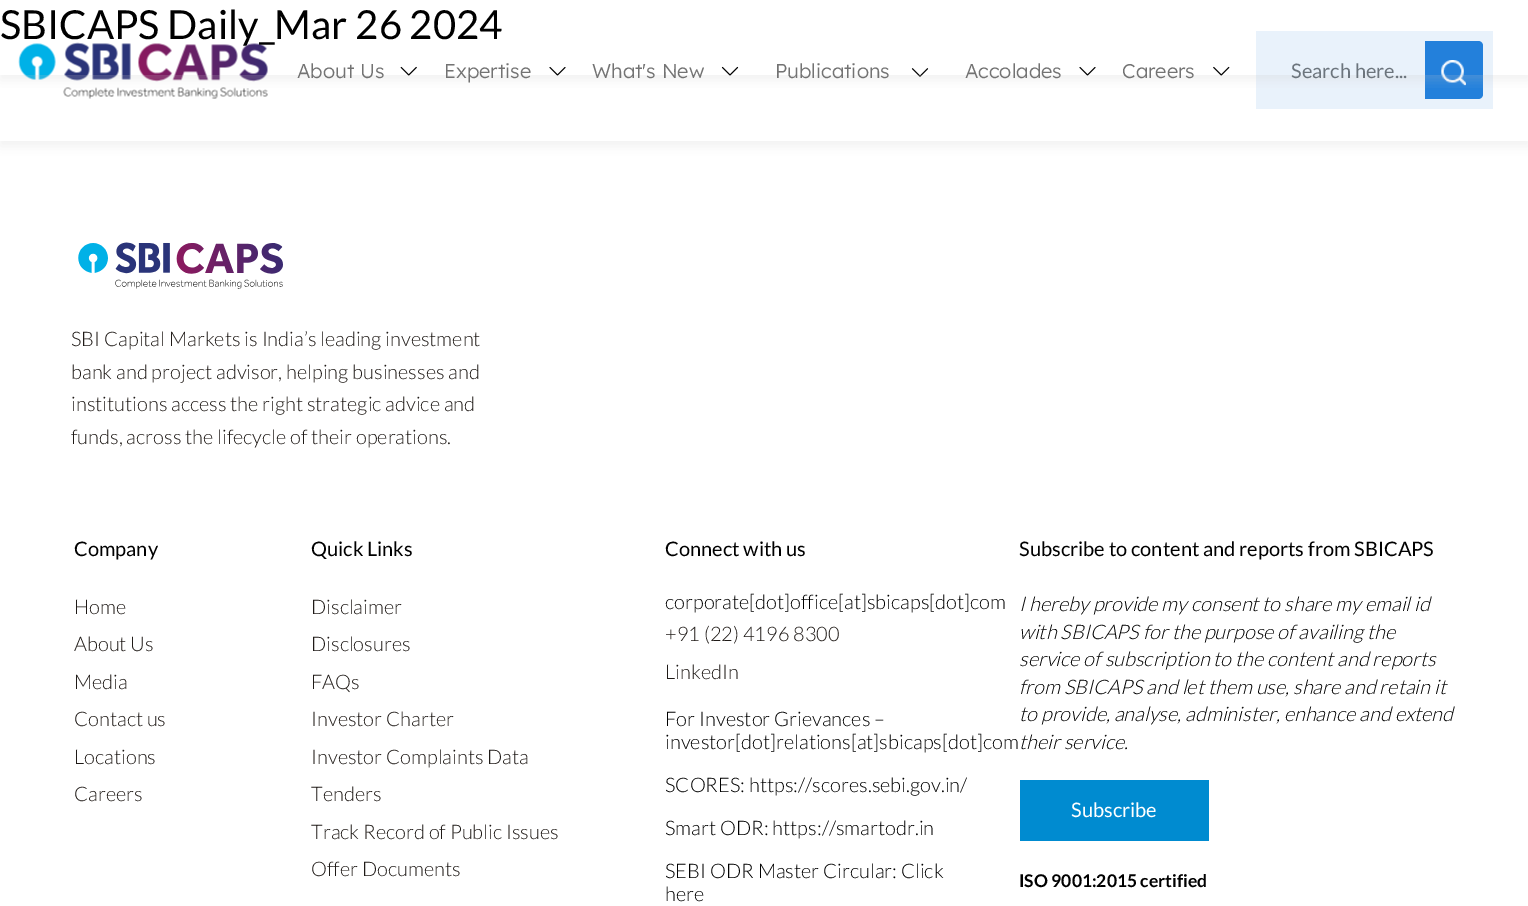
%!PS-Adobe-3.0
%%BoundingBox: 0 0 1528 906
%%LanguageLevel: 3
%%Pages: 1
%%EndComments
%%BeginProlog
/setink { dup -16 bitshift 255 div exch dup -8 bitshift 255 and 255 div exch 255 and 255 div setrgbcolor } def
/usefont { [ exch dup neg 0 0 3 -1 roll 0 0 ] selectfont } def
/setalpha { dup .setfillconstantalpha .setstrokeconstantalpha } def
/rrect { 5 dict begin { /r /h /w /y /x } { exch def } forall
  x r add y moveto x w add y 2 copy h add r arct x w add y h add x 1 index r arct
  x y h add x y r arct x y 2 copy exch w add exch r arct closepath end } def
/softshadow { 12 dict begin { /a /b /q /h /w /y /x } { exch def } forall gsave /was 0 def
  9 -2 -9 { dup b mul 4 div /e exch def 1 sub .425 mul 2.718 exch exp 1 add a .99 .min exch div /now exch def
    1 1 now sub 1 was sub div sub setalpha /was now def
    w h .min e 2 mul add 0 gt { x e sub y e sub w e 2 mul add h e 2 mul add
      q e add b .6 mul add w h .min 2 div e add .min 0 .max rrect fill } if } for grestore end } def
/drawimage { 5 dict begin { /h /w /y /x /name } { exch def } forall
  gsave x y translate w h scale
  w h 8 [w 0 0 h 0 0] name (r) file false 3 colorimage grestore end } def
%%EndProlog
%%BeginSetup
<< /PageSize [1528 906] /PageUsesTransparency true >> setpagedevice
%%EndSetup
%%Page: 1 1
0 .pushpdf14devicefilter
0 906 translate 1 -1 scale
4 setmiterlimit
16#FFFFFF setink
0 0 1528 906 rectfill
16#C3C3C3 setink
0 5 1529 141 0 6 0.25 softshadow
16#FFFFFF setink
0 0 1528 141 rectfill
(img1.raw) 18 42 250 57 drawimage
(img2.raw) 400 66 17 10 drawimage
(img3.raw) 549 67 17 9 drawimage
(img4.raw) 721 66 18 10 drawimage
(img5.raw) 911 68 18 9 drawimage
(img3.raw) 1079 67 17 9 drawimage
(img6.raw) 1213 66 17 10 drawimage
16#E9F2FB setink
1256 31 237 78 rectfill
16#2380DB setink
1425 41 moveto 1478 41 lineto 1481 41 1483 43 1483 46 curveto 1483 94 lineto 1483 97 1481 99 1478 99 curveto 1425 99 lineto closepath fill
(img7.raw) 1441 60 25 26 drawimage
gsave
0 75 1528 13 rectclip
16#C3C3C3 setink
0 5 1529 75 0 6 0.25 softshadow
grestore
/Lato-Regular 40 usefont
16#000000 setink
0 39 moveto (SBICAPS Daily_Mar 26 2024) show
/Lexend-Light 20 usefont
16#737373 setink
[
    [(About Us) 297 78]
    [(Expertise) 444 78]
    [(What's New) 592 78]
    [(Publications) 775 78]
    [(Accolades) 965 78]
    [(Careers) 1122 78]
] { aload pop moveto show } forall
/Lato-Regular 20 usefont
16#6C757D setink
1291 78 moveto (Search here...) show
(img8.raw) 78 242 205 47 drawimage
/Lato-Light 20 usefont
16#1F1A17 setink
[
    [(SBI Capital Markets is India’s leading investment) 71 346]
    [(bank and project advisor, helping businesses and) 71 379]
    [(institutions access the right strategic advice and) 71 411]
    [(funds, across the lifecycle of their operations.) 71 444]
] { aload pop moveto show } forall
/Lato-Regular 20 usefont
16#000000 setink
74 556 moveto (Company) show
/Lato-Light 20 usefont
16#1F1A17 setink
[
    [(Home) 74 614]
    [(About Us) 74 651]
    [(Media) 74 689]
    [(Contact us) 74 726]
    [(Locations) 74 764]
    [(Careers) 74 801]
] { aload pop moveto show } forall
/Lato-Regular 20 usefont
16#000000 setink
311 556 moveto (Quick Links) show
/Lato-Light 20 usefont
16#1F1A17 setink
[
    [(Disclaimer) 311 614]
    [(Disclosures) 311 651]
    [(FAQs) 311 689]
    [(Investor Charter) 311 726]
    [(Investor Complaints Data) 311 764]
    [(Tenders) 311 801]
    [(Track Record of Public Issues) 311 839]
    [(Offer Documents) 311 876]
] { aload pop moveto show } forall
/Lato-Regular 20 usefont
16#000000 setink
665 556 moveto (Connect with us) show
/Lato-Light 20 usefont
665 609 moveto (corporate[dot]office[at]sbicaps[dot]com) show
16#1F1A17 setink
665 641 moveto (+91 \(22\) 4196 8300) show
665 679 moveto (LinkedIn) show
16#000000 setink
[
    [(For Investor Grievances –) 665 726]
    [(investor[dot]relations[at]sbicaps[dot]com) 665 749]
    [(SCORES: https://scores.sebi.gov.in/) 665 792]
    [(Smart ODR: https://smartodr.in) 665 835]
    [(SEBI ODR Master Circular: Click) 665 878]
    [(here) 665 901]
] { aload pop moveto show } forall
/Lato-Regular 20 usefont
1019 556 moveto (Subscribe to content and reports from SBICAPS) show
/Lato-LightItalic 20 usefont
[
    [(I hereby provide my consent to share my email id) 1019 611]
    [(with SBICAPS for the purpose of availing the) 1019 639]
    [(service of subscription to the content and reports) 1019 666]
    [(from SBICAPS and let them use, share and retain it) 1019 694]
    [(to provide, analyse, administer, enhance and extend) 1019 721]
    [(their service.) 1019 749]
] { aload pop moveto show } forall
16#008BD0 setink
1020 780 189 61 rectfill
/Lato-Regular 20 usefont
16#FFFFFF setink
1071 817 moveto (Subscribe) show
/Lato-Bold 17.5 usefont
16#000000 setink
1019 887 moveto (ISO 9001:2015 certified) show
.poppdf14devicefilter showpage
%%EOF
